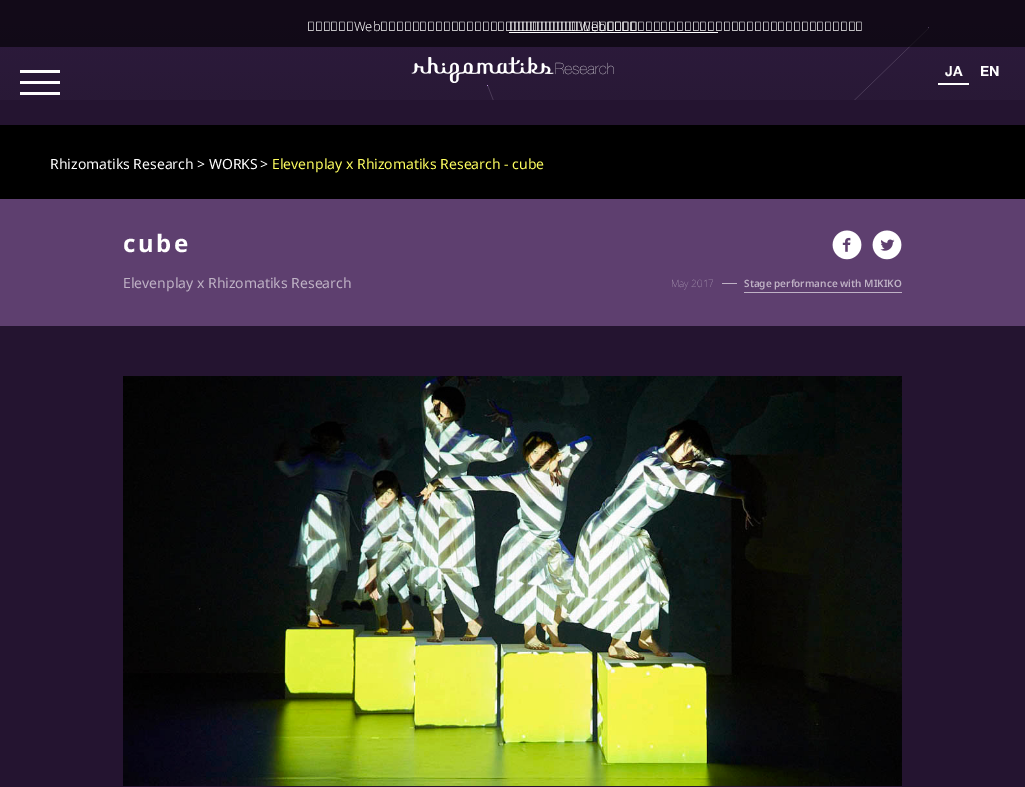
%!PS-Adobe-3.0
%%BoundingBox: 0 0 1025 787
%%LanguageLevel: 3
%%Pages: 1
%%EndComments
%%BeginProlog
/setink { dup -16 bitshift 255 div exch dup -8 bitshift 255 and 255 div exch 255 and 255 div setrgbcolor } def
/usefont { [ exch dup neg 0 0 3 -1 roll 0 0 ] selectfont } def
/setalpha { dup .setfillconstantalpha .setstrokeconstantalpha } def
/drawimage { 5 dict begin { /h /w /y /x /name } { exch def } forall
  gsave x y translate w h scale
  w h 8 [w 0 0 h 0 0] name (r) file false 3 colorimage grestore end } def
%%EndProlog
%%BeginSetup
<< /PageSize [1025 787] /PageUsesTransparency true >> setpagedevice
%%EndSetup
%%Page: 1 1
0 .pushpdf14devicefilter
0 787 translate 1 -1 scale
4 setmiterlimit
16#241430 setink
0 0 1025 787 rectfill
(img1.raw) 0 0 1025 100 drawimage
(img2.raw) 411 57 203 26 drawimage
0.6 setalpha
16#000000 setink
0 0 1025 47 rectfill
/NotoSans-Light 13 usefont
1 setalpha
16#FFFFFF setink
307 31 moveto (このWebサイトはアーカイブです) show
509 31 moveto (新しいWebサイトの情報を確認する) show
509 32 209 1 rectfill
938 83 31 2 rectfill
/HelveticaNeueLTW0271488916-Bold 14 usefont
945 76 moveto (JA) show
980 76 moveto (EN) show
[
    [20 70 40 3 16#FFFFFF]
    [20 81 40 3 16#FFFFFF]
    [20 92 40 3 16#FFFFFF]
    [0 125 1025 74 16#000000]
] { aload pop setink rectfill } forall
/NotoSans-Regular 14 usefont
16#FFFFFF setink
[
    [(Rhizomatiks Research) 50 169]
    [(> WORKS) 197 169]
    [(>) 260 169]
] { aload pop moveto show } forall
16#FFFF5F setink
272 169 moveto (Elevenplay x Rhizomatiks Research - cube) show
16#5E3F6F setink
0 199 1025 127 rectfill
/NotoSans-Bold 24 usefont
16#FFFFFF setink
123 252 moveto 2.5 0 (cube) ashow
/NotoSans-Regular 14 usefont
16#BFB2C5 setink
123 288 moveto (Elevenplay x Rhizomatiks Research) show
(img3.raw) 832 230 30 30 drawimage
(img4.raw) 872 230 30 30 drawimage
/NotoSans-Thin 10 usefont
671 287 moveto (May 2017) show
722 283 15 1 rectfill
/NotoSans-SemiBold 10 usefont
744 287 moveto (Stage performance with MIKIKO) show
744 292 158 1 rectfill
(img5.raw) 123 376 779 410 drawimage
.poppdf14devicefilter showpage
%%EOF
